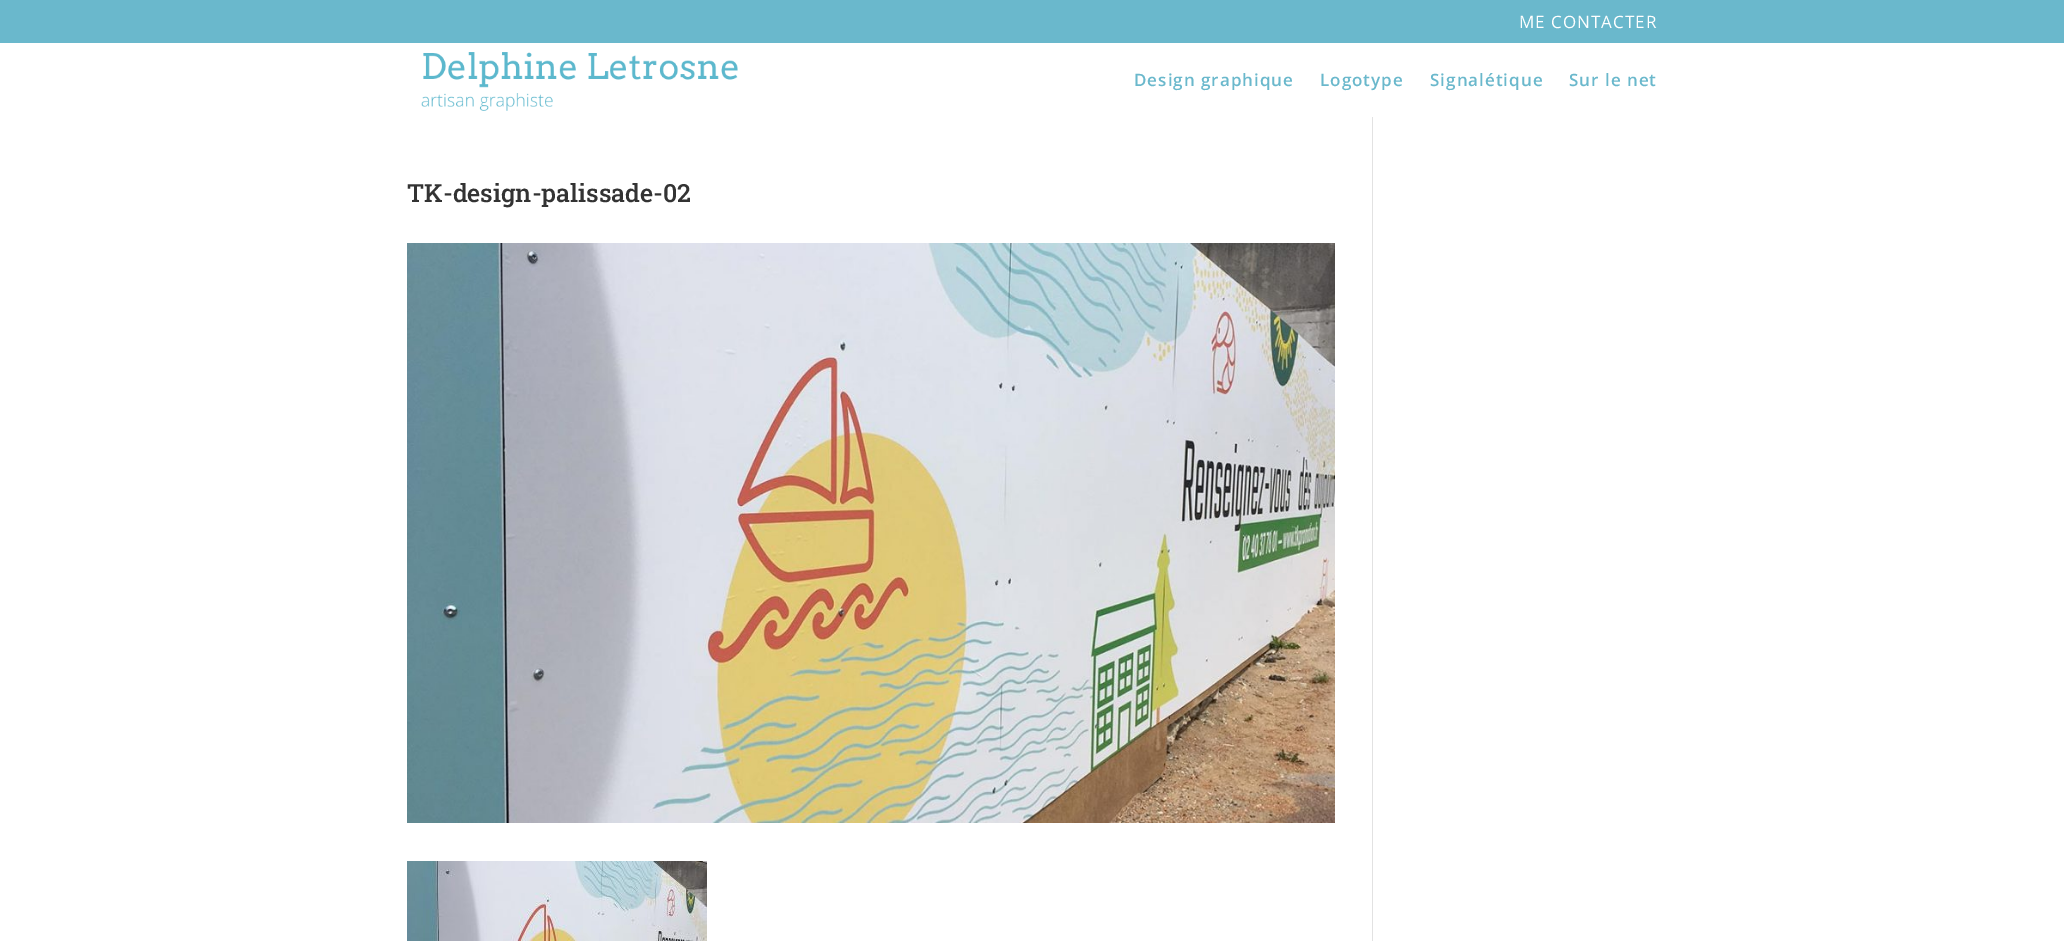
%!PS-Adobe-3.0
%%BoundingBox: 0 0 2064 941
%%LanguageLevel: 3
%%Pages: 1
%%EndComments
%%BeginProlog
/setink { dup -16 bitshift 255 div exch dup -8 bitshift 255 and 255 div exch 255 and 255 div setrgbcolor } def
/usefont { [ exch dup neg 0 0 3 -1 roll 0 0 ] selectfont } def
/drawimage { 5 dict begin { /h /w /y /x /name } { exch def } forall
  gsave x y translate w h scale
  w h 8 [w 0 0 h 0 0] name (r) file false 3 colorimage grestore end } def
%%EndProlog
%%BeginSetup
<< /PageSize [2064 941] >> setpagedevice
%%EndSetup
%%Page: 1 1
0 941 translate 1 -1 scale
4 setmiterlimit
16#FFFFFF setink
0 0 2064 941 rectfill
16#6AB8CC setink
0 0 2064 43 rectfill
/OpenSans-Regular 17 usefont
16#FFFFFF setink
1519 28 moveto 1 0 (ME CONTACTER) ashow
16#E2E2E2 setink
1372 116 1 825 rectfill
16#FFFFFF setink
1372 116 1 1 rectfill
(img1.raw) 421 52 317 59 drawimage
/OpenSans-SemiBold 17 usefont
16#6AB8CC setink
1134 86 moveto 1 0 (Design graphique) ashow
1320 86 moveto 1 0 (Logotype) ashow
1430 86 moveto 1 0 (Signalétique) ashow
1569 86 moveto 1 0 (Sur le net) ashow
/RobotoSlab-Medium 25 usefont
16#333333 setink
407 202 moveto (TK-design-palissade-02) show
(img2.raw) 407 243 928 580 drawimage
(img3.raw) 407 861 300 80 drawimage
showpage
%%EOF
